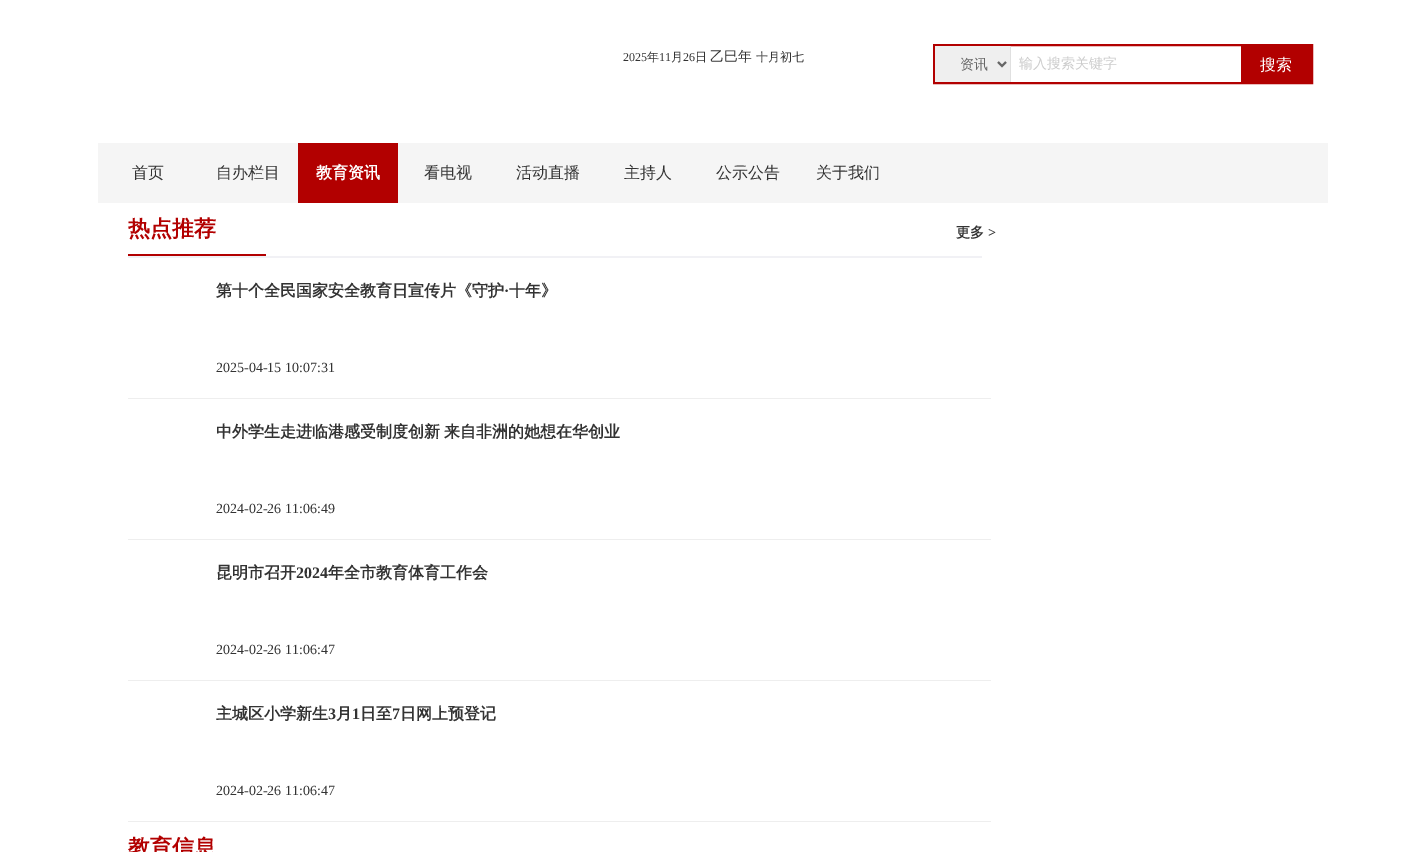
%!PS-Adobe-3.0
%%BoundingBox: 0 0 1426 852
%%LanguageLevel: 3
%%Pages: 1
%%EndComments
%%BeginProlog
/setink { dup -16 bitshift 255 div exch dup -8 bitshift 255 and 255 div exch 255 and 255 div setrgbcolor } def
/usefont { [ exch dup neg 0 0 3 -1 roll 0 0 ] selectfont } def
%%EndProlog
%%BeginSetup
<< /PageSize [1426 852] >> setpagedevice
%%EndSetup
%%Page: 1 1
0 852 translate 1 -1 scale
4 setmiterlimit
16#FFFFFF setink
0 0 1426 852 rectfill
/LiberationSerif-Regular 12 usefont
16#333333 setink
623 61 moveto (2025) show
/WenQuanYiZenHei-Medium 12 usefont
647 61 moveto (年) show
/LiberationSerif-Regular 12 usefont
659 61 moveto (11) show
/WenQuanYiZenHei-Medium 12 usefont
671 61 moveto (月) show
/LiberationSerif-Regular 12 usefont
683 61 moveto (26) show
/WenQuanYiZenHei-Medium 12 usefont
695 61 moveto (日) show
/WenQuanYiZenHei-Medium 14 usefont
710 61 moveto (乙巳年) show
/WenQuanYiZenHei-Medium 12 usefont
756 61 moveto (十月初七) show
16#B20000 setink
2 setlinewidth
934 45 378 38 rectstroke
16#E0E0E0 setink
1010 46 1 36 rectfill
16#EFEFEF setink
935 46 75 36 rectfill
16#666666 setink
998 62 moveto 1002 66 lineto 1006 62 lineto stroke
/WenQuanYiZenHei-Medium 14 usefont
960 69 moveto (资讯) show
16#CCCCCC setink
1019 68 moveto (输入搜索关键字) show
16#B20000 setink
1241 46 70 36 rectfill
/WenQuanYiZenHei-Medium 16 usefont
16#FFFFFF setink
1260 70 moveto (搜索) show
16#F5F5F5 setink
98 143 1230 60 rectfill
16#333333 setink
132 178 moveto (首页) show
216 178 moveto (自办栏目) show
16#B20000 setink
298 143 100 60 rectfill
/WenQuanYiZenHei-Bold 16 usefont
16#FFFFFF setink
316 178 moveto (教育资讯) show
/WenQuanYiZenHei-Medium 16 usefont
16#333333 setink
[
    [(看电视) 424 178]
    [(活动直播) 516 178]
    [(主持人) 624 178]
    [(公示公告) 716 178]
    [(关于我们) 816 178]
] { aload pop moveto show } forall
16#F1F1F5 setink
128 256 854 2 rectfill
16#B20000 setink
128 254 138 2 rectfill
/WenQuanYiZenHei-Bold 22 usefont
128 236 moveto (热点推荐) show
/WenQuanYiZenHei-Bold 14 usefont
16#333333 setink
956 237 moveto (更多) show
/LiberationSerif-Bold 14 usefont
988 237 moveto (>) show
16#EEEEEE setink
128 398 863 1 rectfill
/WenQuanYiZenHei-Bold 16 usefont
16#333333 setink
216 296 moveto (第十个全民国家安全教育日宣传片《守护) show
/LiberationSerif-Bold 16 usefont
504 296 moveto (·) show
/WenQuanYiZenHei-Bold 16 usefont
509 296 moveto (十年》) show
/LiberationSerif-Regular 14 usefont
216 372 moveto (2025-04-15 10:07:31) show
16#EEEEEE setink
128 539 863 1 rectfill
/WenQuanYiZenHei-Bold 16 usefont
16#333333 setink
216 437 moveto -1 0 32 (中外学生走进临港感受制度创新 来自非洲的她想在华创业) widthshow
/LiberationSerif-Regular 14 usefont
216 513 moveto (2024-02-26 11:06:49) show
16#EEEEEE setink
128 680 863 1 rectfill
/WenQuanYiZenHei-Bold 16 usefont
16#333333 setink
216 578 moveto (昆明市召开) show
/LiberationSerif-Bold 16 usefont
296 578 moveto (2024) show
/WenQuanYiZenHei-Bold 16 usefont
328 578 moveto (年全市教育体育工作会) show
/LiberationSerif-Regular 14 usefont
216 654 moveto (2024-02-26 11:06:47) show
16#EEEEEE setink
128 821 863 1 rectfill
/WenQuanYiZenHei-Bold 16 usefont
16#333333 setink
216 719 moveto (主城区小学新生) show
/LiberationSerif-Bold 16 usefont
328 719 moveto (3) show
/WenQuanYiZenHei-Bold 16 usefont
336 719 moveto (月) show
/LiberationSerif-Bold 16 usefont
352 719 moveto (1) show
/WenQuanYiZenHei-Bold 16 usefont
360 719 moveto (日至) show
/LiberationSerif-Bold 16 usefont
392 719 moveto (7) show
/WenQuanYiZenHei-Bold 16 usefont
400 719 moveto (日网上预登记) show
/LiberationSerif-Regular 14 usefont
216 795 moveto (2024-02-26 11:06:47) show
/WenQuanYiZenHei-Bold 22 usefont
16#B20000 setink
128 855 moveto (教育信息) show
showpage
%%EOF
